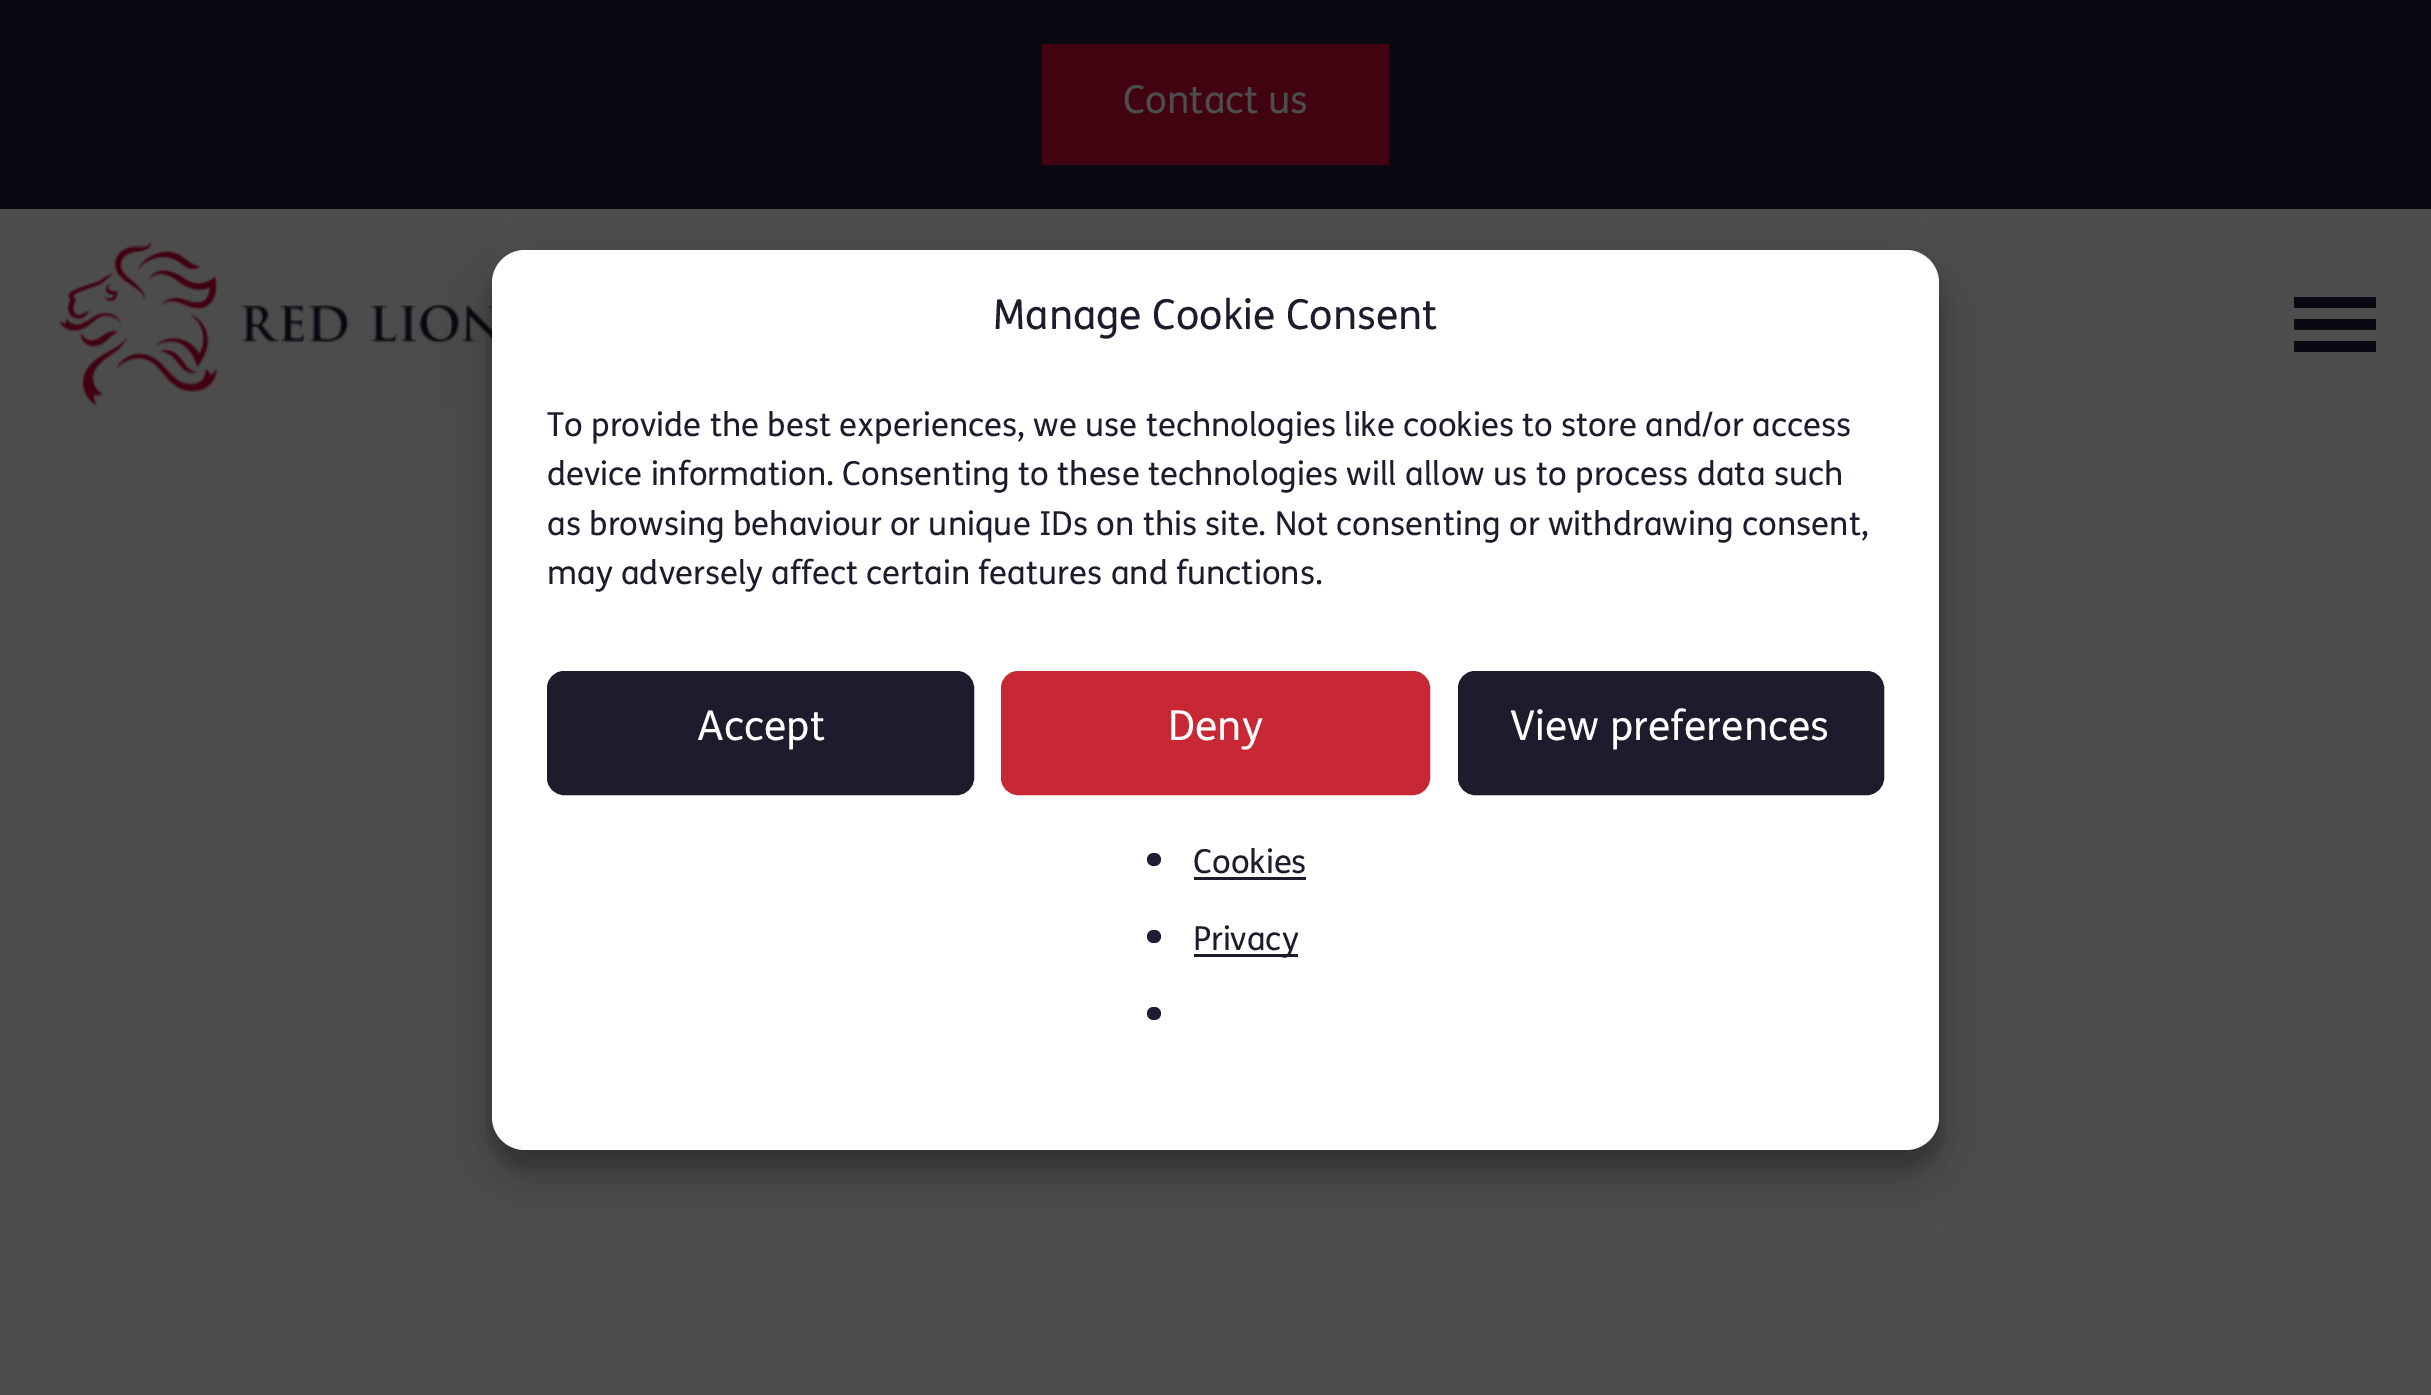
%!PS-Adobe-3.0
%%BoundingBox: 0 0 2431 1395
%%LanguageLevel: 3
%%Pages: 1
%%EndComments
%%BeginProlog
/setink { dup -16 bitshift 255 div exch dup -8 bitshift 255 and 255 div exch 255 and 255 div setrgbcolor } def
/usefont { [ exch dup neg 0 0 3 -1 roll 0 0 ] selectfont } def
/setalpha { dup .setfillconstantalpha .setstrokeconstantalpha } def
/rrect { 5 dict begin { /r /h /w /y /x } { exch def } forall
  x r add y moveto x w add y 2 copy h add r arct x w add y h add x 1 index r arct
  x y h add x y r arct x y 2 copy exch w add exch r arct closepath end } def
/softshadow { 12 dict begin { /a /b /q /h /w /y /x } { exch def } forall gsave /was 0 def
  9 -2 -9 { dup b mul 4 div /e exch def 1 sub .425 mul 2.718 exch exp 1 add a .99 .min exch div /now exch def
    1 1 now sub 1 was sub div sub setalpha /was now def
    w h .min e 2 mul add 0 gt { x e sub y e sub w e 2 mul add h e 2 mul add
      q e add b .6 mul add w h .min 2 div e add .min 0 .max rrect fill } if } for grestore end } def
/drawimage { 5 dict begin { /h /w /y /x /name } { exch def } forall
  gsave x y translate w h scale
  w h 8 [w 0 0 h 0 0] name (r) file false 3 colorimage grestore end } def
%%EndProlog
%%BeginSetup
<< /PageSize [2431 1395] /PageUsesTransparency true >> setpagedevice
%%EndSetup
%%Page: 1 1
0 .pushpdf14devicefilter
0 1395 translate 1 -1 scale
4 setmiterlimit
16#4D4D4D setink
0 0 2431 1395 rectfill
16#0A0810 setink
0 0 2431 209 rectfill
16#420311 setink
1042 44 347 121 rectfill
/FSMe-Regular 38.5 usefont
16#4D4D4D setink
1123 113 moveto (Contact us) show
(img1.raw) 58 240 434 167 drawimage
[
    [2294 297 82 11 16#0A0810]
    [2294 319 82 11 16#0A0810]
    [2294 341 82 11 16#0A0810]
] { aload pop setink rectfill } forall
16#000000 setink
492 267 1447 899 33 8 0.23 softshadow
492 278 1447 899 33 27.5 0.19 softshadow
16#FFFFFF setink
492 250 1447 900 33 rrect fill
/FSMe-Regular 41.25 usefont
16#1D1B2C setink
993 329 moveto (Manage Cookie Consent) show
/FSMe-Regular 33 usefont
[
    [(To provide the best experiences, we use technologies like cookies to store and/or access) 547 436]
    [(device information. Consenting to these technologies will allow us to process data such) 547 485]
    [(as browsing behaviour or unique IDs on this site. Not consenting or withdrawing consent,) 547 535]
    [(may adversely affect certain features and functions.) 547 584]
] { aload pop moveto show } forall
548.5 672.5 424 121 15.5 rrect gsave fill grestore
3 setlinewidth
stroke
/FSMe-Regular 41.25 usefont
16#FFFFFF setink
697 740 moveto (Accept) show
16#C82833 setink
1002.5 672.5 426 121 15.5 rrect gsave fill grestore
stroke
16#FFFFFF setink
1168 740 moveto (Deny) show
16#1D1B2C setink
1459.5 672.5 423 121 15.5 rrect gsave fill grestore
stroke
16#FFFFFF setink
1510 740 moveto (View preferences) show
16#201C34 setink
1147 853 14 13 6.5 rrect fill
/FSMe-Regular 33 usefont
16#1D1B2C setink
1193 873 moveto (Cookies) show
1194 877 112 3 rectfill
16#201C34 setink
1147 930 14 13 6.5 rrect fill
16#1D1B2C setink
1194 954 104 3 rectfill
1193 950 moveto (Privacy) show
16#201C34 setink
1147 1007 14 13 6.5 rrect fill
.poppdf14devicefilter showpage
%%EOF
